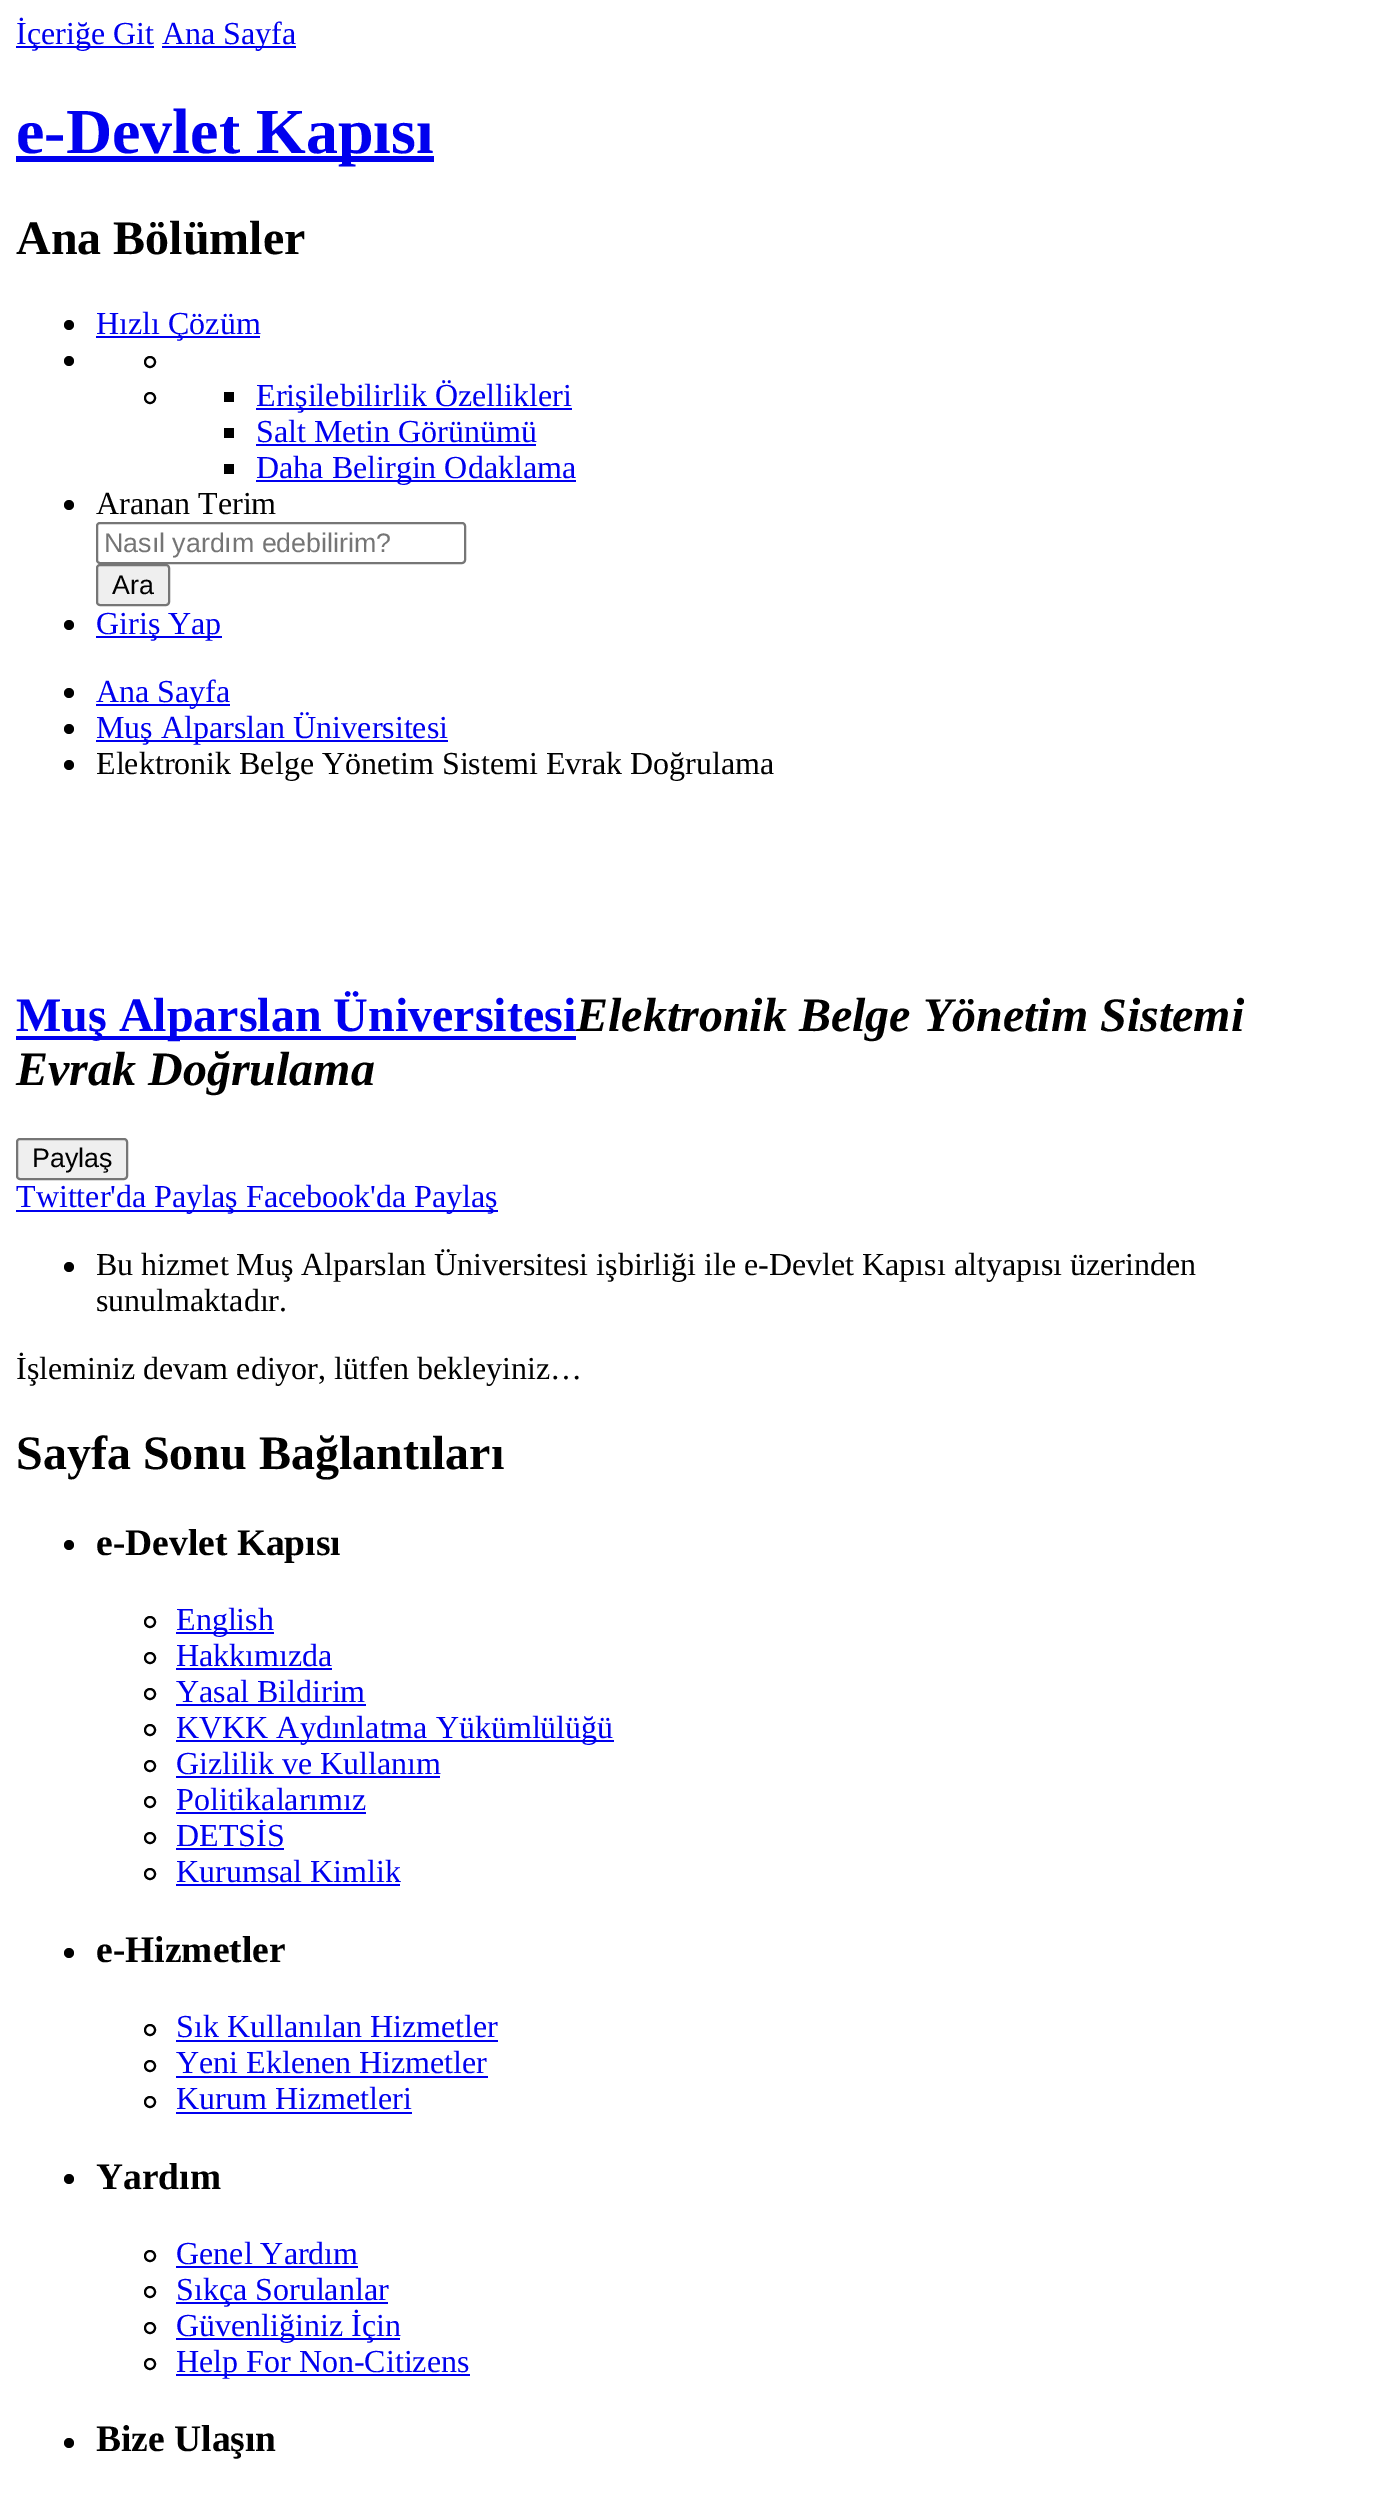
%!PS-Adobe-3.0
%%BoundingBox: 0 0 1373 2493
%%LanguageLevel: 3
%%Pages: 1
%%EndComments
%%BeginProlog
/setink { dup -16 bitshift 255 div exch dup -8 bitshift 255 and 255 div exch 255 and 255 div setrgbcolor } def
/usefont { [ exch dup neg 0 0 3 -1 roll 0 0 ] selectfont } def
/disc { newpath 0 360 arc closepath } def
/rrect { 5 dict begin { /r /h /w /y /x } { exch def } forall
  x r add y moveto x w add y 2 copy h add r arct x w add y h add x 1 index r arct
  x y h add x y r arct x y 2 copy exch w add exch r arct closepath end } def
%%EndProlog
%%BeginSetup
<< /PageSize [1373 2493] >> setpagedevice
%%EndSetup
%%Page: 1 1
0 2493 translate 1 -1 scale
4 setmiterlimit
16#FFFFFF setink
0 0 1373 2493 rectfill
16#0000EE setink
16 46 138 2 rectfill
/LiberationSerif-Regular 32 usefont
16 44 moveto (İçeriğe Git) show
162 46 134 2 rectfill
162 44 moveto (Ana Sayfa) show
16 156 418 6 rectfill
/LiberationSerif-Bold 64 usefont
16 153 moveto (e-Devlet Kapısı) show
/LiberationSerif-Bold 48 usefont
16#000000 setink
16 254 moveto (Ana Bölümler) show
69 325 5 disc fill
16#0000EE setink
96 336 164 2 rectfill
/LiberationSerif-Regular 32 usefont
96 334 moveto (Hızlı Çözüm) show
16#000000 setink
69 361 5 disc fill
2 setlinewidth
150 362 5 disc stroke
150 398 5 disc stroke
224 392 10 10 rectfill
16#0000EE setink
256 408 316 2 rectfill
256 406 moveto (Erişilebilirlik Özellikleri) show
16#000000 setink
224 428 10 10 rectfill
16#0000EE setink
256 442 moveto (Salt Metin Görünümü) show
[
    [256 444 280 2 16#0000EE]
    [224 464 10 10 16#000000]
    [256 480 320 2 16#0000EE]
] { aload pop setink rectfill } forall
256 478 moveto (Daha Belirgin Odaklama) show
16#000000 setink
69 505 5 disc fill
96 514 moveto (Aranan Terim) show
16#767676 setink
97 523 368 40 3 rrect stroke
/LiberationSans-Regular 26.75 usefont
16#757575 setink
104 552 moveto (Nasıl yardım edebilirim?) show
16#EFEFEF setink
97 565 72 40 3 rrect gsave fill grestore
16#767676 setink
stroke
16#000000 setink
112 594 moveto (Ara) show
69 625 5 disc fill
16#0000EE setink
96 636 126 2 rectfill
/LiberationSerif-Regular 32 usefont
96 634 moveto (Giriş Yap) show
16#000000 setink
69 693 5 disc fill
16#0000EE setink
96 704 134 2 rectfill
96 702 moveto (Ana Sayfa) show
16#000000 setink
69 729 5 disc fill
16#0000EE setink
96 740 352 2 rectfill
96 738 moveto (Muş Alparslan Üniversitesi) show
16#000000 setink
69 765 5 disc fill
96 774 moveto (Elektronik Belge Yönetim Sistemi Evrak Doğrulama) show
16#0000EE setink
16 1036 560 4 rectfill
/LiberationSerif-Bold 48 usefont
16 1031 moveto (Muş Alparslan Üniversitesi) show
/LiberationSerif-BoldItalic 48 usefont
16#000000 setink
576 1031 moveto (Elektronik Belge Yönetim Sistemi) show
16 1085 moveto (Evrak Doğrulama) show
16#EFEFEF setink
17 1139 110 40 3 rrect gsave fill grestore
16#767676 setink
stroke
/LiberationSans-Regular 26.75 usefont
16#000000 setink
32 1167 moveto (Paylaş) show
16#0000EE setink
16 1210 482 2 rectfill
/LiberationSerif-Regular 32 usefont
16 1207 moveto (Twitter'da Paylaş Facebook'da Paylaş) show
16#000000 setink
69 1267 5 disc fill
[
    [(Bu hizmet Muş Alparslan Üniversitesi işbirliği ile e-Devlet Kapısı altyapısı üzerinden) 96 1275]
    [(sunulmaktadır.) 96 1311]
    [(İşleminiz devam ediyor, lütfen bekleyiniz…) 16 1379]
] { aload pop moveto show } forall
/LiberationSerif-Bold 48 usefont
16 1469 moveto (Sayfa Sonu Bağlantıları) show
69 1545 5 disc fill
/LiberationSerif-Bold 37.5 usefont
96 1555 moveto (e-Devlet Kapısı) show
150 1622 5 disc stroke
16#0000EE setink
176 1632 98 2 rectfill
/LiberationSerif-Regular 32 usefont
176 1630 moveto (English) show
16#000000 setink
150 1658 5 disc stroke
16#0000EE setink
176 1666 moveto (Hakkımızda) show
176 1668 156 2 rectfill
16#000000 setink
150 1694 5 disc stroke
16#0000EE setink
176 1702 moveto (Yasal Bildirim) show
176 1704 190 2 rectfill
16#000000 setink
150 1730 5 disc stroke
16#0000EE setink
176 1740 438 2 rectfill
176 1738 moveto (KVKK Aydınlatma Yükümlülüğü) show
16#000000 setink
150 1766 5 disc stroke
16#0000EE setink
176 1774 moveto (Gizlilik ve Kullanım) show
176 1776 264 2 rectfill
16#000000 setink
150 1802 5 disc stroke
16#0000EE setink
176 1810 moveto (Politikalarımız) show
176 1812 190 2 rectfill
16#000000 setink
150 1838 5 disc stroke
16#0000EE setink
176 1846 moveto (DETSİS) show
176 1848 108 2 rectfill
16#000000 setink
150 1874 5 disc stroke
16#0000EE setink
176 1882 moveto (Kurumsal Kimlik) show
176 1884 224 2 rectfill
16#000000 setink
69 1953 5 disc fill
/LiberationSerif-Bold 37.5 usefont
96 1962 moveto (e-Hizmetler) show
150 2030 5 disc stroke
/LiberationSerif-Regular 32 usefont
16#0000EE setink
176 2037 moveto (Sık Kullanılan Hizmetler) show
176 2040 322 2 rectfill
16#000000 setink
150 2066 5 disc stroke
16#0000EE setink
176 2073 moveto (Yeni Eklenen Hizmetler) show
176 2076 312 2 rectfill
16#000000 setink
150 2102 5 disc stroke
16#0000EE setink
176 2109 moveto (Kurum Hizmetleri) show
176 2112 236 2 rectfill
16#000000 setink
69 2179 5 disc fill
/LiberationSerif-Bold 37.5 usefont
96 2189 moveto (Yardım) show
150 2256 5 disc stroke
/LiberationSerif-Regular 32 usefont
16#0000EE setink
176 2264 moveto (Genel Yardım) show
176 2266 182 2 rectfill
16#000000 setink
150 2292 5 disc stroke
16#0000EE setink
176 2302 212 2 rectfill
176 2300 moveto (Sıkça Sorulanlar) show
16#000000 setink
150 2328 5 disc stroke
16#0000EE setink
176 2338 224 2 rectfill
176 2336 moveto (Güvenliğiniz İçin) show
16#000000 setink
150 2364 5 disc stroke
16#0000EE setink
176 2374 294 2 rectfill
176 2372 moveto (Help For Non-Citizens) show
16#000000 setink
69 2443 5 disc fill
/LiberationSerif-Bold 37.5 usefont
96 2451 moveto (Bize Ulaşın) show
showpage
%%EOF
